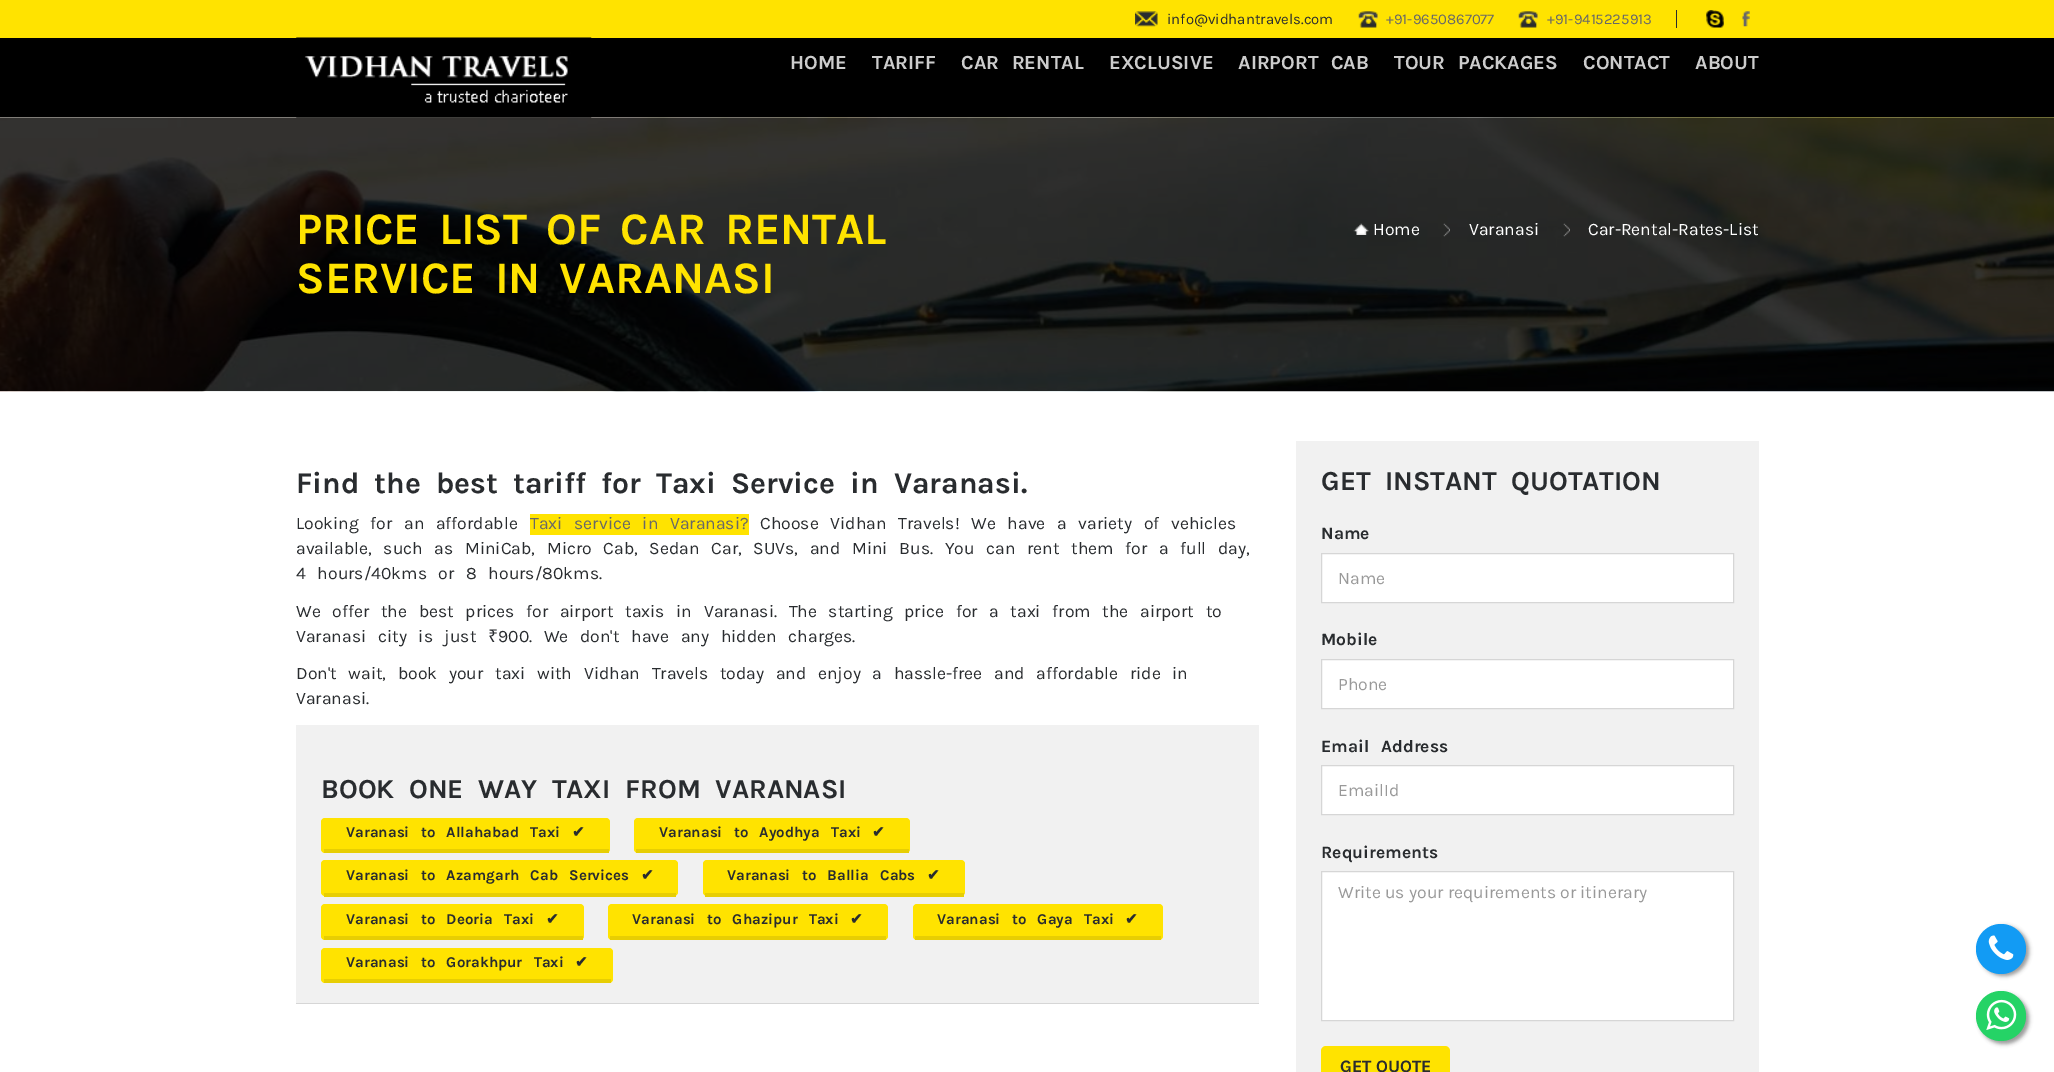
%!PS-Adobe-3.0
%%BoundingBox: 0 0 2054 1072
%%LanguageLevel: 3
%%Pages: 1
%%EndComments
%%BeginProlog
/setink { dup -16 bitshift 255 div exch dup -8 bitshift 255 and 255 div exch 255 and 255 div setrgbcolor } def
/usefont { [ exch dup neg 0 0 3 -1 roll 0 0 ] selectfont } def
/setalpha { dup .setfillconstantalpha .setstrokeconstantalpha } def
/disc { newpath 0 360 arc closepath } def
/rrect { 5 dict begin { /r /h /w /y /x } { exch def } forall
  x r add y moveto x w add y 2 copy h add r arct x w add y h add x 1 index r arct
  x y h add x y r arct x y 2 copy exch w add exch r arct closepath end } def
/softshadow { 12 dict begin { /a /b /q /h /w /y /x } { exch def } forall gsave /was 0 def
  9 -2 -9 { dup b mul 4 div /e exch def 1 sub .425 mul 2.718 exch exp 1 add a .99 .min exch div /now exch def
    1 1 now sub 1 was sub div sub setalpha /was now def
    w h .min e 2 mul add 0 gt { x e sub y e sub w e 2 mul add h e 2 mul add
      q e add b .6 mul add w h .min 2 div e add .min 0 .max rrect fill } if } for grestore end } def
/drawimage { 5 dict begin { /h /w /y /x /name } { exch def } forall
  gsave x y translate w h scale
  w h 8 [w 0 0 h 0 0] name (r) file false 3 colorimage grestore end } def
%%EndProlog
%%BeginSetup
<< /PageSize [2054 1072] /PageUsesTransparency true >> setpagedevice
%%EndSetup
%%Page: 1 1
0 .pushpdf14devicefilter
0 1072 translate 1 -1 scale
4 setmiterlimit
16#FFFFFF setink
0 0 2054 1072 rectfill
16#FFE300 setink
0 0 2054 38 rectfill
(img1.raw) 1135 11 23 16 drawimage
/Karla-Regular 14.9 usefont
16#292C2F setink
1167 24 moveto (info@vidhantravels.com) show
(img2.raw) 1358 11 20 17 drawimage
16#686868 setink
1386 24 moveto (+91-9650867077) show
(img3.raw) 1518 11 20 17 drawimage
1547 24 moveto (+91-9415225913) show
16#292C2F setink
1676 10 1 18 rectfill
(img4.raw) 1706 10 18 18 drawimage
(img5.raw) 1742 11 8 16 drawimage
16#000000 setink
0 38 2054 80 rectfill
(img7.raw) 0 117 2054 275 drawimage
(img6.raw) 296 37 296 81 drawimage
/Karla-Bold 20 usefont
16#CCCCCC setink
790 69 moveto (HOME) show
872 69 moveto (TARIFF) show
961 69 moveto 7.5 0 32 (CAR RENTAL) widthshow
1109 69 moveto (EXCLUSIVE) show
1238 69 moveto 7.5 0 32 (AIRPORT CAB) widthshow
1394 69 moveto 7.5 0 32 (TOUR PACKAGES) widthshow
1583 69 moveto (CONTACT) show
1695 69 moveto (ABOUT) show
/Karla-Bold 45 usefont
16#FFE300 setink
296 244 moveto 7.5 0 32 (PRICE LIST OF CAR RENTAL) widthshow
296 293 moveto 7.5 0 32 (SERVICE IN VARANASI) widthshow
(img8.raw) 1353 223 16 12 drawimage
/Karla-Regular 17.5 usefont
16#FFFFFF setink
1373 235 moveto (Home) show
(img9.raw) 1443 223 7 14 drawimage
1469 235 moveto (Varanasi) show
(img10.raw) 1563 223 7 14 drawimage
1588 235 moveto (Car-Rental-Rates-List) show
/Karla-Bold 30 usefont
16#292C2F setink
296 493 moveto 7.5 0 32 (Find the best tariff for Taxi Service in Varanasi.) widthshow
/Karla-Regular 17.5 usefont
296 529 moveto 7.5 0 32 (Looking for an affordable) widthshow
16#FFE300 setink
530 514 219 21 rectfill
16#686868 setink
530 529 moveto 7.5 0 32 (Taxi service in Varanasi?) widthshow
16#292C2F setink
760 529 moveto 7.5 0 32 (Choose Vidhan Travels! We have a variety of vehicles) widthshow
296 554 moveto 7.5 0 32 (available, such as MiniCab, Micro Cab, Sedan Car, SUVs, and Mini Bus. You can rent them for a full day,) widthshow
296 579 moveto 7.5 0 32 (4 hours/40kms or 8 hours/80kms.) widthshow
296 617 moveto 7.5 0 32 (We offer the best prices for airport taxis in Varanasi. The starting price for a taxi from the airport to) widthshow
296 642 moveto 7.5 0 32 (Varanasi city is just) widthshow
/NotoSans-Regular 17.5 usefont
488 642 moveto (₹) show
/Karla-Regular 17.5 usefont
498 642 moveto 7.5 0 32 (900. We don't have any hidden charges.) widthshow
296 679 moveto 7.5 0 32 (Don't wait, book your taxi with Vidhan Travels today and enjoy a hassle-free and affordable ride in) widthshow
296 704 moveto (Varanasi.) show
16#F1F1F1 setink
296 725 963 278 rectfill
16#D6D6D6 setink
296 1003 963 1 rectfill
/Karla-Bold 27.5 usefont
16#292C2F setink
321 798 moveto 7.5 0 32 (BOOK ONE WAY TAXI FROM VARANASI) widthshow
16#FFE300 setink
321 818 289 35 4 rrect fill
16#E7CE03 setink
324 849 285 4 rectfill
/Karla-Bold 15 usefont
16#292C2F setink
346 837 moveto 7.5 0 32 (Varanasi to Allahabad Taxi) widthshow
/DejaVuSans-Bold 15 usefont
572 837 moveto (✔) show
16#FFE300 setink
634 818 276 35 4 rrect fill
16#E7CE03 setink
636 849 273 4 rectfill
/Karla-Bold 15 usefont
16#292C2F setink
659 837 moveto 7.5 0 32 (Varanasi to Ayodhya Taxi) widthshow
/DejaVuSans-Bold 15 usefont
872 837 moveto (✔) show
16#FFE300 setink
321 860 357 36 4 rrect fill
16#E7CE03 setink
324 893 352 4 rectfill
/Karla-Bold 15 usefont
16#292C2F setink
346 880 moveto 7.5 0 32 (Varanasi to Azamgarh Cab Services) widthshow
/DejaVuSans-Bold 15 usefont
641 880 moveto (✔) show
16#FFE300 setink
703 860 262 36 4 rrect fill
16#E7CE03 setink
705 893 259 4 rectfill
/Karla-Bold 15 usefont
16#292C2F setink
727 880 moveto 7.5 0 32 (Varanasi to Ballia Cabs) widthshow
/DejaVuSans-Bold 15 usefont
927 880 moveto (✔) show
16#FFE300 setink
321 904 263 36 4 rrect fill
16#E7CE03 setink
324 936 259 4 rectfill
/Karla-Bold 15 usefont
16#292C2F setink
346 924 moveto 7.5 0 32 (Varanasi to Deoria Taxi) widthshow
/DejaVuSans-Bold 15 usefont
546 924 moveto (✔) show
16#FFE300 setink
608 904 280 36 4 rrect fill
16#E7CE03 setink
610 936 276 4 rectfill
/Karla-Bold 15 usefont
16#292C2F setink
632 924 moveto 7.5 0 32 (Varanasi to Ghazipur Taxi) widthshow
/DejaVuSans-Bold 15 usefont
850 924 moveto (✔) show
16#FFE300 setink
913 904 250 36 4 rrect fill
16#E7CE03 setink
915 936 246 4 rectfill
/Karla-Bold 15 usefont
16#292C2F setink
937 924 moveto 7.5 0 32 (Varanasi to Gaya Taxi) widthshow
/DejaVuSans-Bold 15 usefont
1125 924 moveto (✔) show
16#FFE300 setink
321 948 292 35 4 rrect fill
16#E7CE03 setink
324 979 287 4 rectfill
/Karla-Bold 15 usefont
16#292C2F setink
346 967 moveto 7.5 0 32 (Varanasi to Gorakhpur Taxi) widthshow
/DejaVuSans-Bold 15 usefont
575 967 moveto (✔) show
16#F1F1F1 setink
1296 441 463 631 rectfill
/Karla-Bold 27.5 usefont
16#292C2F setink
1321 490 moveto 7.5 0 32 (GET INSTANT QUOTATION) widthshow
/Karla-Bold 17.5 usefont
1321 539 moveto (Name) show
16#FFFFFF setink
1321.5 553.5 moveto 1733.5 553.5 lineto 1733.5 602.5 lineto 1321.5 602.5 lineto closepath gsave fill grestore
16#D6D6D6 setink
stroke
/Karla-Regular 17.5 usefont
16#999999 setink
1338 584 moveto (Name) show
/Karla-Bold 17.5 usefont
16#292C2F setink
1321 645 moveto (Mobile) show
16#FFFFFF setink
1321.5 659.5 moveto 1733.5 659.5 lineto 1733.5 708.5 lineto 1321.5 708.5 lineto closepath gsave fill grestore
16#D6D6D6 setink
stroke
/Karla-Regular 17.5 usefont
16#999999 setink
1338 690 moveto (Phone) show
/Karla-Bold 17.5 usefont
16#292C2F setink
1321 752 moveto 7.5 0 32 (Email Address) widthshow
16#FFFFFF setink
1321.5 765.5 moveto 1733.5 765.5 lineto 1733.5 814.5 lineto 1321.5 814.5 lineto closepath gsave fill grestore
16#D6D6D6 setink
stroke
/Karla-Regular 17.5 usefont
16#999999 setink
1338 796 moveto (EmailId) show
/Karla-Bold 17.5 usefont
16#292C2F setink
1321 858 moveto (Requirements) show
16#FFFFFF setink
1321.5 871.5 moveto 1733.5 871.5 lineto 1733.5 1020.5 lineto 1321.5 1020.5 lineto closepath gsave fill grestore
16#D6D6D6 setink
stroke
/Karla-Regular 17.5 usefont
16#999999 setink
1338 898 moveto (Write us your requirements or itinerary) show
16#FFE300 setink
1321 1046 129 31 5 rrect fill
/Karla-Bold 17.5 usefont
16#292C2F setink
1340 1072 moveto (GET QUOTE) show
16#999999 setink
1979 926 50 50 25 2 1 softshadow
16#129BF4 setink
2001 949 25 disc fill
(img11.raw) 1988 935 26 25 drawimage
16#999999 setink
1979 994 50 50 25 2 1 softshadow
16#25D366 setink
2001 1016 25 disc fill
(img12.raw) 1986 999 31 31 drawimage
.poppdf14devicefilter showpage
%%EOF
